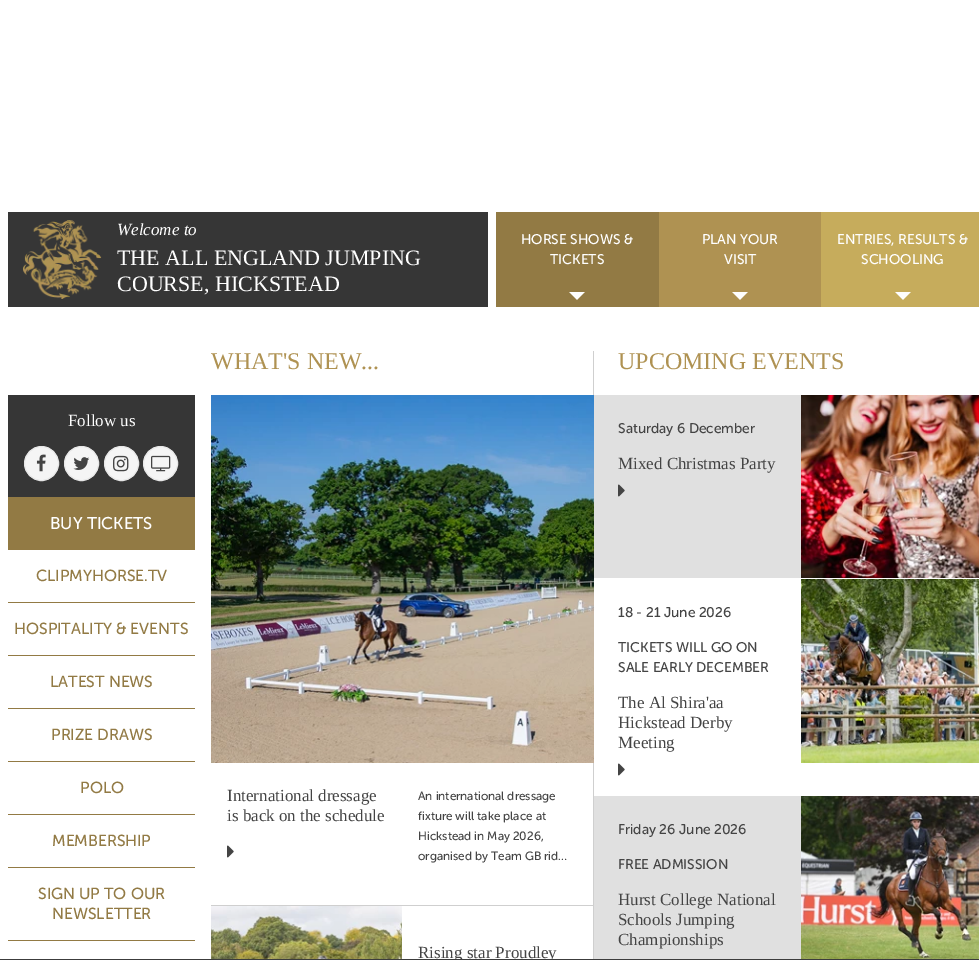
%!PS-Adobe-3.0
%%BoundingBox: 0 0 979 960
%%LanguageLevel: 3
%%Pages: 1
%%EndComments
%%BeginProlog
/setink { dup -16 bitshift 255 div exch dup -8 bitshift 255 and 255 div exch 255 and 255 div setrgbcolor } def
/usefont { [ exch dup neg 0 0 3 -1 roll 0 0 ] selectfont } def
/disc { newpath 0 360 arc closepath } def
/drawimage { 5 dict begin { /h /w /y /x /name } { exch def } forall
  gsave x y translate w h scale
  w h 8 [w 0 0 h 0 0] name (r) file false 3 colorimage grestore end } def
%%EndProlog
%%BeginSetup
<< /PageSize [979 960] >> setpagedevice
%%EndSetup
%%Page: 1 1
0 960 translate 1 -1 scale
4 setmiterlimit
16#FFFFFF setink
0 0 979 960 rectfill
16#363636 setink
8 212 480 95 rectfill
(img1.raw) 22 220 80 79 drawimage
/LiberationSerif-Italic 17 usefont
16#FFFFFF setink
117 235 moveto (Welcome to) show
/LiberationSerif-Regular 22 usefont
117 265 moveto (THE ALL ENGLAND JUMPING) show
117 291 moveto (COURSE, HICKSTEAD) show
16#927A44 setink
496 212 163 95 rectfill
(img2.raw) 569 292 16 8 drawimage
/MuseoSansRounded-Regular 14 usefont
16#FFFFFF setink
521 244 moveto (HORSE SHOWS &) show
550 264 moveto (TICKETS) show
16#AF9252 setink
659 212 162 95 rectfill
(img3.raw) 732 292 16 8 drawimage
16#FFFFFF setink
702 244 moveto (PLAN YOUR) show
724 264 moveto (VISIT) show
16#C6AC5C setink
821 212 158 95 rectfill
(img4.raw) 895 292 16 8 drawimage
16#FFFFFF setink
837 244 moveto (ENTRIES, RESULTS &) show
861 264 moveto (SCHOOLING) show
16#363636 setink
8 395 187 102 rectfill
/LiberationSerif-Regular 17 usefont
16#FFFFFF setink
68 426 moveto (Follow us) show
16#F5F5F5 setink
41.5 463.5 17 disc gsave fill grestore
16#E7E7E7 setink
stroke
(img5.raw) 36 454 10 18 drawimage
16#F5F5F5 setink
81.5 463.5 17 disc gsave fill grestore
16#E7E7E7 setink
stroke
(img6.raw) 73 457 17 13 drawimage
16#F5F5F5 setink
121.5 463.5 17 disc gsave fill grestore
16#E7E7E7 setink
stroke
(img7.raw) 113 455 16 17 drawimage
16#F5F5F5 setink
160.5 463.5 17 disc gsave fill grestore
16#E7E7E7 setink
stroke
(img8.raw) 151 455 20 17 drawimage
16#927A44 setink
8 497 187 53 rectfill
/MuseoSansRounded-Regular 17 usefont
16#FFFFFF setink
50 529 moveto (BUY TICKETS) show
16#927A44 setink
8 602 187 1 rectfill
/MuseoSansRounded-Regular 16 usefont
36 581 moveto (CLIPMYHORSE.TV) show
8 655 187 1 rectfill
14 634 moveto (HOSPITALITY & EVENTS) show
8 708 187 1 rectfill
50 687 moveto (LATEST NEWS) show
8 761 187 1 rectfill
51 740 moveto (PRIZE DRAWS) show
8 814 187 1 rectfill
80 793 moveto (POLO) show
8 867 187 1 rectfill
52 846 moveto (MEMBERSHIP) show
8 940 187 1 rectfill
38 899 moveto (SIGN UP TO OUR) show
52 919 moveto (NEWSLETTER) show
16#CFCFCF setink
593 351 1 44 rectfill
/LiberationSerif-Regular 24 usefont
16#AF9252 setink
211 369 moveto (WHAT'S NEW...) show
(img9.raw) 211 395 383 368 drawimage
/LiberationSerif-Regular 17 usefont
16#444444 setink
227 801 moveto (International dressage) show
227 821 moveto (is back on the schedule) show
(img10.raw) 227 845 7 13 drawimage
/MuseoSansRounded-Regular 12 usefont
[
    [(An international dressage) 418 800]
    [(fixture will take place at) 418 820]
    [(Hickstead in May 2026,) 418 840]
    [(organised by Team GB rid…) 418 860]
] { aload pop moveto show } forall
16#CFCFCF setink
211 905 383 1 rectfill
593 763 1 197 rectfill
(img11.raw) 211 906 191 53 drawimage
/LiberationSerif-Regular 17 usefont
16#444444 setink
418 958 moveto (Rising star Proudley) show
/LiberationSerif-Regular 24 usefont
16#AF9252 setink
618 369 moveto (UPCOMING EVENTS) show
16#E0E0E0 setink
594 395 207 183 rectfill
/MuseoSansRounded-Regular 14 usefont
16#444444 setink
618 433 moveto (Saturday 6 December) show
/LiberationSerif-Regular 17 usefont
618 469 moveto (Mixed Christmas Party) show
(img12.raw) 618 484 7 13 drawimage
(img13.raw) 801 395 178 183 drawimage
/MuseoSansRounded-Regular 14 usefont
[
    [(18 - 21 June 2026) 618 617]
    [(TICKETS WILL GO ON) 618 652]
    [(SALE EARLY DECEMBER) 618 672]
] { aload pop moveto show } forall
/LiberationSerif-Regular 17 usefont
[
    [(The Al Shira'aa) 618 708]
    [(Hickstead Derby) 618 728]
    [(Meeting) 618 748]
] { aload pop moveto show } forall
(img10.raw) 618 763 7 13 drawimage
(img14.raw) 801 579 178 184 drawimage
16#E0E0E0 setink
594 796 207 163 rectfill
/MuseoSansRounded-Regular 14 usefont
16#444444 setink
618 834 moveto (Friday 26 June 2026) show
618 869 moveto (FREE ADMISSION) show
/LiberationSerif-Regular 17 usefont
[
    [(Hurst College National) 618 905]
    [(Schools Jumping) 618 925]
    [(Championships) 618 945]
] { aload pop moveto show } forall
(img15.raw) 801 796 178 163 drawimage
16#3C3C3C setink
0 959 979 1 rectfill
showpage
%%EOF
